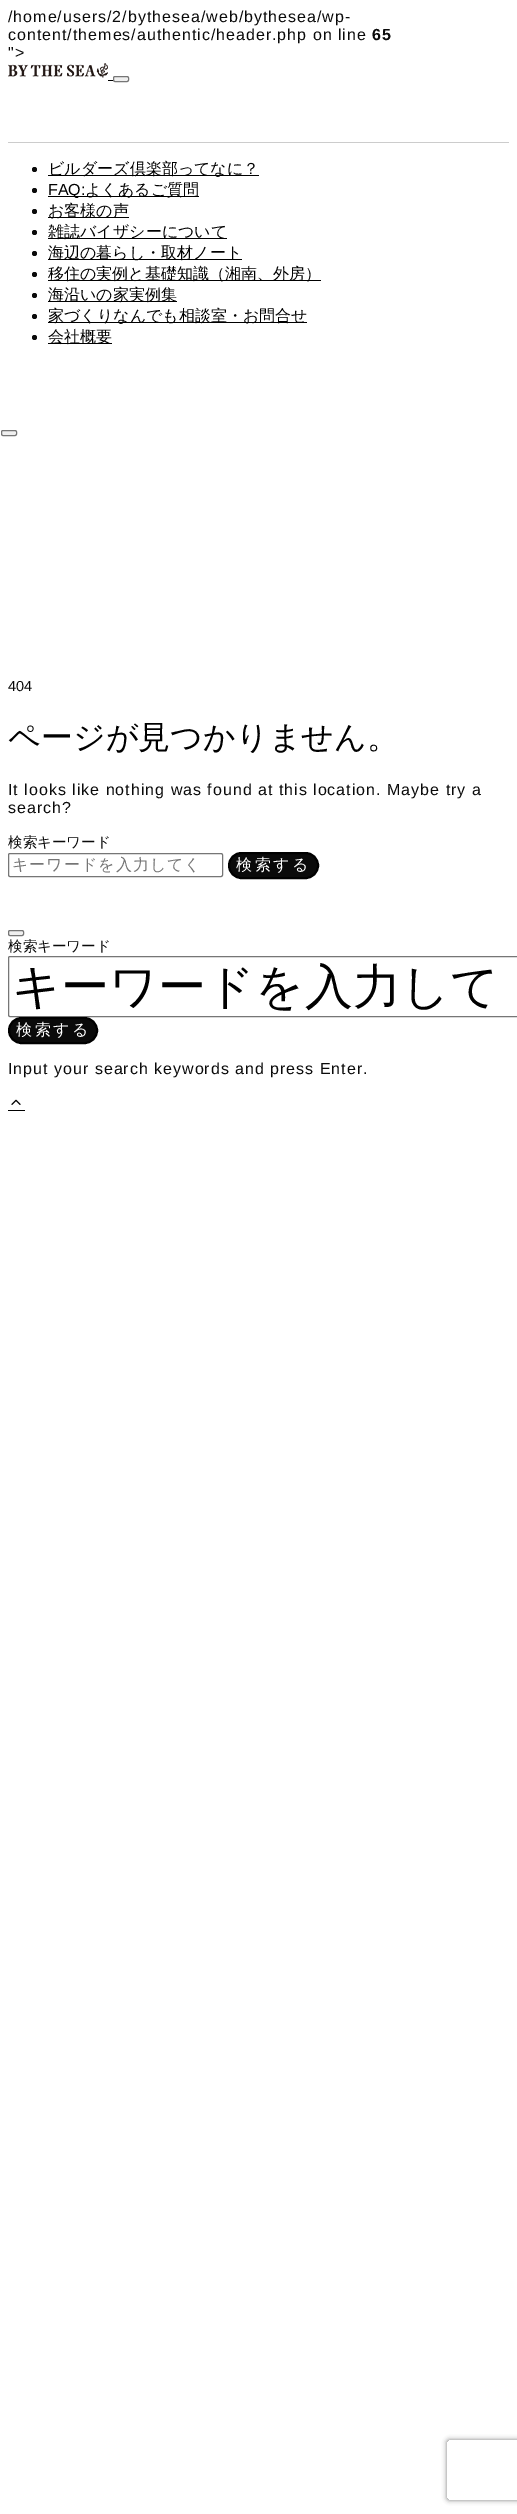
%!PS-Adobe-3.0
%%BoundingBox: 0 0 517 2514
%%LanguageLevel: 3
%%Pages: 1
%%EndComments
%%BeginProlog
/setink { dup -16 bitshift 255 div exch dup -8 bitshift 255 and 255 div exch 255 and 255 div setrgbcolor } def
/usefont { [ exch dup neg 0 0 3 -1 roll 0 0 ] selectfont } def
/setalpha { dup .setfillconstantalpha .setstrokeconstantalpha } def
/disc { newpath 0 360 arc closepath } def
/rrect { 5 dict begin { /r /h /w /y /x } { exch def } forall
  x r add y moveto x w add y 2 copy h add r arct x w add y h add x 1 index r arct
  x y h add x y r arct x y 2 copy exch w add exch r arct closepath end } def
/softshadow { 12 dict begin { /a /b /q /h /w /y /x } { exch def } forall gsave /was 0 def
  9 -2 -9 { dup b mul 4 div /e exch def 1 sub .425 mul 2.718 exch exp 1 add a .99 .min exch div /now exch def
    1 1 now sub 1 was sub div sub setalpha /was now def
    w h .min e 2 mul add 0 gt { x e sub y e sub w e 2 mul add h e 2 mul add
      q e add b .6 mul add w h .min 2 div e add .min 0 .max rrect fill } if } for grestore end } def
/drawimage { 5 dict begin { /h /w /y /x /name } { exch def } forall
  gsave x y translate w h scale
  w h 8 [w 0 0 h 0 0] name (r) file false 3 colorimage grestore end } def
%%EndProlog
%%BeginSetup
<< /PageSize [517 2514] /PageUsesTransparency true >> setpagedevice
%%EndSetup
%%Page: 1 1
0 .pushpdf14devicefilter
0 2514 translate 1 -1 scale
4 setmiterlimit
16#FFFFFF setink
0 0 517 2514 rectfill
/LiberationSans-Regular 16 usefont
16#0A0A0A setink
8 22 moveto 1 0 (/home/users/2/bythesea/web/bythesea/wp-) ashow
8 40 moveto 1 0 (content/themes/authentic/header.php on line) ashow
/LiberationSans-Bold 16 usefont
372 40 moveto 1 0 (65) ashow
/LiberationSans-Regular 16 usefont
8 58 moveto 1 0 (">) ashow
16#CCCCCC setink
8 142 501 1 rectfill
(img1.raw) 8 63 100 15 drawimage
16#000000 setink
108 80 5 1 rectfill
16#EFEFEF setink
113.5 76.5 15 5 1.5 rrect gsave fill grestore
16#767676 setink
stroke
16#0A0A0A setink
34.5 169.5 2.5 disc fill
16#000000 setink
48 175 211 1 rectfill
/WenQuanYiZenHei-Medium 16 usefont
48 174 moveto (ビルダーズ倶楽部ってなに？) show
16#0A0A0A setink
34.5 190.5 2.5 disc fill
16#000000 setink
48 196 151 1 rectfill
/LiberationSans-Regular 16 usefont
48 195 moveto (FAQ:) show
/WenQuanYiZenHei-Medium 16 usefont
85 195 moveto (よくあるご質問) show
16#0A0A0A setink
34.5 211.5 2.5 disc fill
16#000000 setink
48 217 81 1 rectfill
48 216 moveto (お客様の声) show
16#0A0A0A setink
34.5 232.5 2.5 disc fill
16#000000 setink
48 238 179 1 rectfill
48 237 moveto (雑誌バイザシーについて) show
16#0A0A0A setink
34.5 253.5 2.5 disc fill
16#000000 setink
48 259 194 1 rectfill
48 258 moveto (海辺の暮らし・取材ノート) show
16#0A0A0A setink
34.5 274.5 2.5 disc fill
16#000000 setink
48 280 273 1 rectfill
48 279 moveto (移住の実例と基礎知識（湘南、外房）) show
16#0A0A0A setink
34.5 295.5 2.5 disc fill
16#000000 setink
48 301 129 1 rectfill
48 300 moveto (海沿いの家実例集) show
16#0A0A0A setink
34.5 316.5 2.5 disc fill
16#000000 setink
48 322 259 1 rectfill
48 321 moveto (家づくりなんでも相談室・お問合せ) show
16#0A0A0A setink
34.5 337.5 2.5 disc fill
16#000000 setink
48 343 64 1 rectfill
48 342 moveto (会社概要) show
16#EFEFEF setink
1.5 430.5 15 5 1.5 rrect gsave fill grestore
16#767676 setink
stroke
/LiberationSans-Regular 14.5 usefont
16#0A0A0A setink
8 691 moveto (404) show
/WenQuanYiZenHei-Medium 32 usefont
16#000000 setink
8 748 moveto (ページが見つかりません。) show
/LiberationSans-Regular 16 usefont
16#0A0A0A setink
8 795 moveto 1 0 (It looks like nothing was found at this location. Maybe try a) ashow
8 813 moveto 1 0 (search?) ashow
/WenQuanYiZenHei-Medium 14.5 usefont
8 847 moveto (検索キーワード) show
16#767676 setink
8.5 853.5 214 23 1.5 rrect stroke
/WenQuanYiZenHei-Medium 16 usefont
16#757575 setink
12 870 moveto 1 0 (キーワードを入力してく) ashow
16#0A0A0A setink
229 853 89 25 12.5 rrect gsave fill grestore
16#000000 setink
2 setlinewidth
stroke
16#FFFFFF setink
236 870 moveto 2.5 0 (検索する) ashow
16#EFEFEF setink
8.5 930.5 15 5 1.5 rrect gsave fill grestore
16#767676 setink
1 setlinewidth
stroke
/WenQuanYiZenHei-Medium 14.5 usefont
16#0A0A0A setink
8 951 moveto (検索キーワード) show
16#767676 setink
8.5 956.5 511 60 1.5 rrect stroke
/WenQuanYiZenHei-Medium 48 usefont
16#000000 setink
12 1003 moveto (キーワードを入力して) show
16#0A0A0A setink
9 1018 88 25 12.5 rrect gsave fill grestore
16#000000 setink
2 setlinewidth
stroke
/WenQuanYiZenHei-Medium 16 usefont
16#FFFFFF setink
16 1035 moveto 2.5 0 (検索する) ashow
/LiberationSans-Regular 16 usefont
16#0A0A0A setink
8 1074 moveto 1 0 (Input your search keywords and press Enter.) ashow
(img2.raw) 11 1099 10 6 drawimage
16#000000 setink
8 1110 17 1 rectfill
gsave
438 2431 moveto 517 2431 lineto 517 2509 lineto 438 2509 lineto closepath 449 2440 moveto 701 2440 lineto 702 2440 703 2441 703 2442 curveto 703 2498 lineto 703 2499 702 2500 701 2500 curveto 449 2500 lineto 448 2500 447 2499 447 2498 curveto 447 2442 lineto 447 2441 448 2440 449 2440 curveto closepath eoclip newpath
16#808080 setink
447 2440 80 60 2 2.5 1 softshadow
grestore
.poppdf14devicefilter showpage
%%EOF
